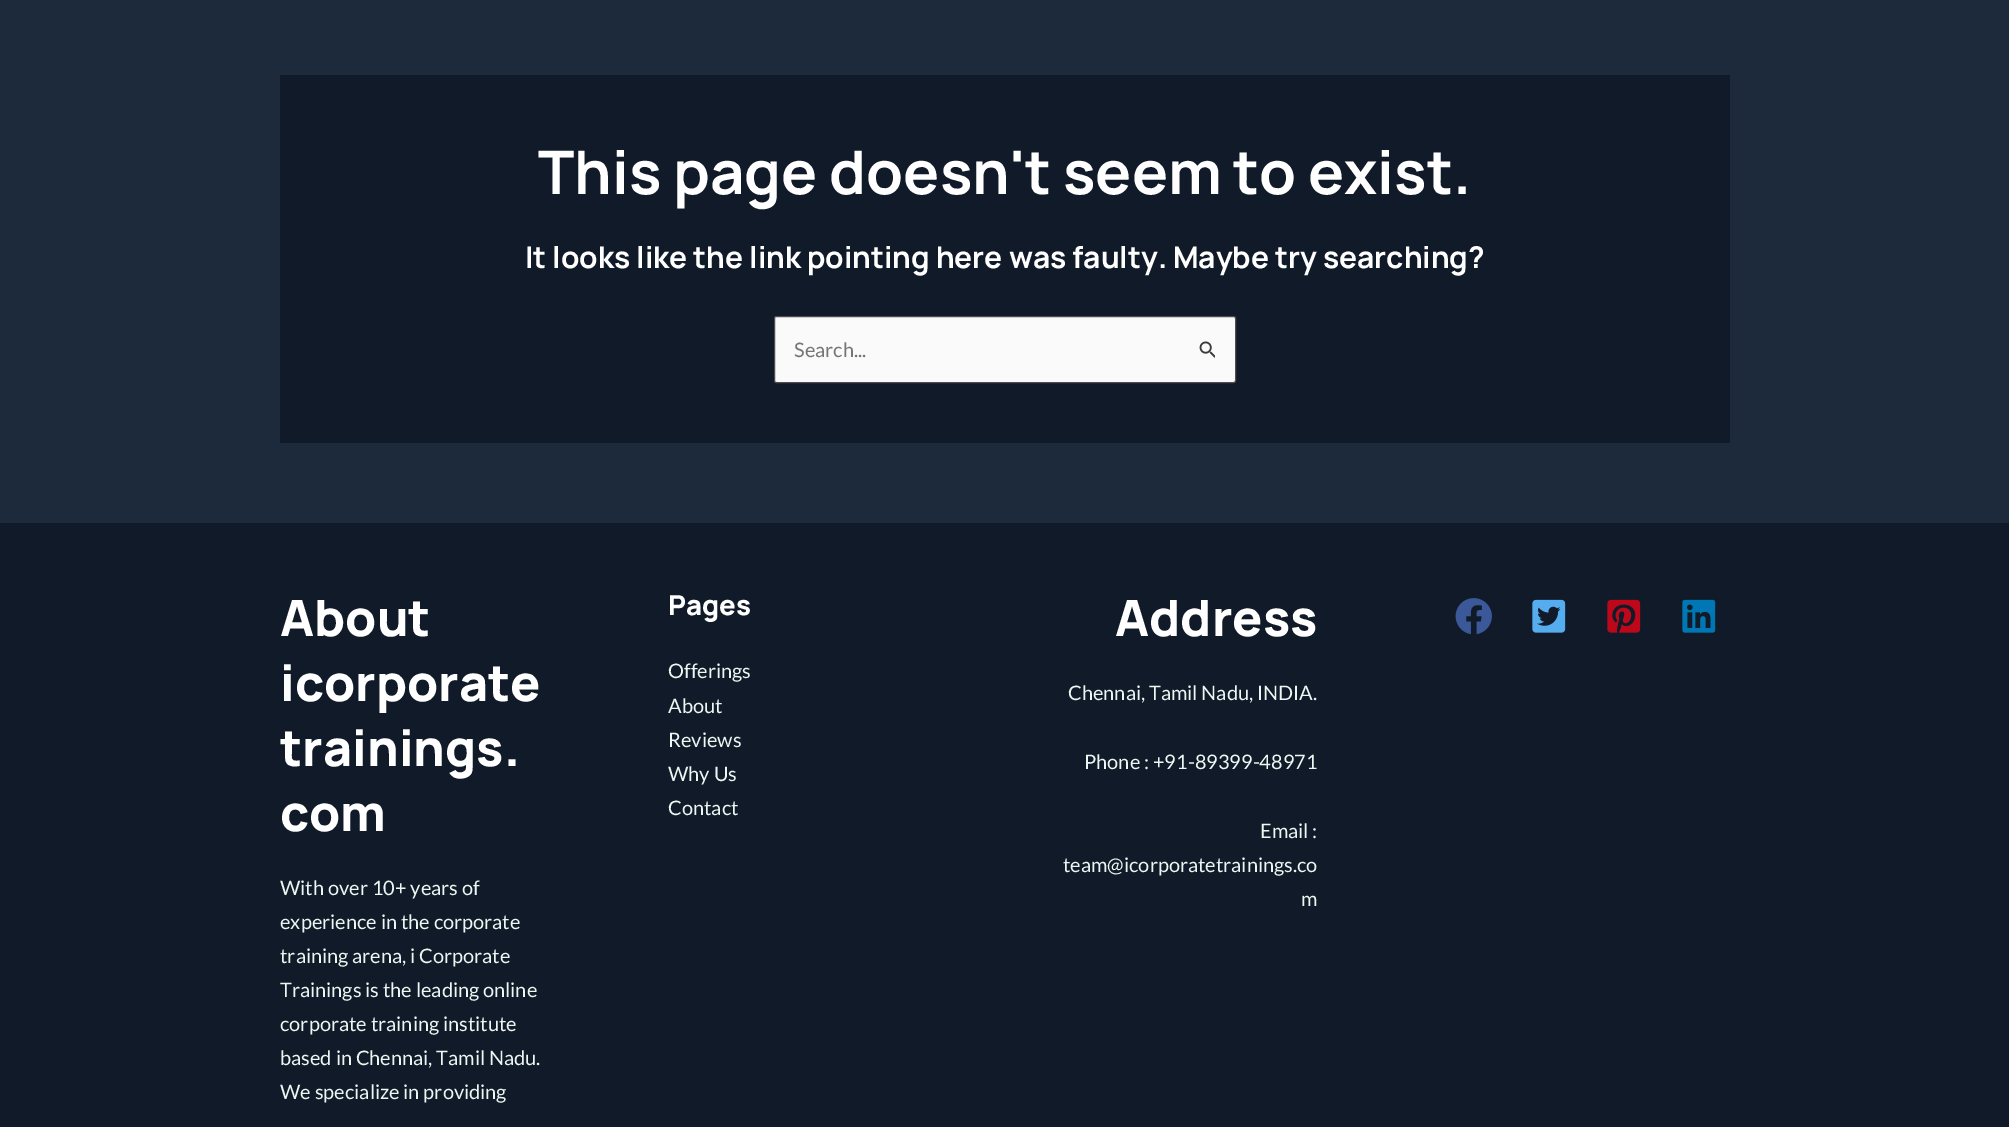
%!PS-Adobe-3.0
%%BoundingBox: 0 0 2009 1127
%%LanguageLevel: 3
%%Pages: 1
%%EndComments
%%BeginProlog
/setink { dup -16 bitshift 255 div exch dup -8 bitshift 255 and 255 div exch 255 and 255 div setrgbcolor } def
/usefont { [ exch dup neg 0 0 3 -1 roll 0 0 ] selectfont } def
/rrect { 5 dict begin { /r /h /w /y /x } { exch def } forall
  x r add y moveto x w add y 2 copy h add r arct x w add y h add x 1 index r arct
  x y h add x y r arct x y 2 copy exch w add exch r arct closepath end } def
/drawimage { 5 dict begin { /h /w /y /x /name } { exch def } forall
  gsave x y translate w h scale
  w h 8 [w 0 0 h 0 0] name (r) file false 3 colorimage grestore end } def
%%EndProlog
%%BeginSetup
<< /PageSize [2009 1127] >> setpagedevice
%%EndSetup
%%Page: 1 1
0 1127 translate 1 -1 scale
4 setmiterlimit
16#1C2A3C setink
0 0 2009 1127 rectfill
16#111A28 setink
280 75 1450 368 rectfill
/Manrope-Bold 60 usefont
16#FFFFFF setink
538 194 moveto -0.25 0 32 (This page doesn't seem to exist.) widthshow
/Manrope-Bold 30 usefont
525 268 moveto (It looks like the link pointing here was faulty. Maybe try searching?) show
16#FAFAFA setink
774.5 316.5 461 66 2 rrect gsave fill grestore
16#4E4E4E setink
stroke
/Lato-Regular 20 usefont
16#757575 setink
794 357 moveto (Search...) show
(img1.raw) 1199 341 16 17 drawimage
16#111A28 setink
0 523 2009 604 rectfill
/Manrope-ExtraBold 50 usefont
16#FFFFFF setink
[
    [(About) 280 636]
    [(icorporate) 280 701]
    [(trainings.) 280 766]
    [(com) 280 831]
] { aload pop moveto show } forall
/Lato-Regular 20 usefont
16#EDF6F3 setink
[
    [(With over 10+ years of) 280 895]
    [(experience in the corporate) 280 929]
    [(training arena, i Corporate) 280 963]
    [(Trainings is the leading online) 280 997]
    [(corporate training institute) 280 1031]
    [(based in Chennai, Tamil Nadu.) 280 1065]
    [(We specialize in providing) 280 1099]
] { aload pop moveto show } forall
/Manrope-ExtraBold 27.5 usefont
16#FFFFFF setink
668 615 moveto (Pages) show
/Lato-Regular 20 usefont
16#EDF6F3 setink
[
    [(Offerings) 668 678]
    [(About) 668 713]
    [(Reviews) 668 747]
    [(Why Us) 668 781]
    [(Contact) 668 815]
] { aload pop moveto show } forall
/Manrope-ExtraBold 50 usefont
16#FFFFFF setink
1115 636 moveto (Address) show
/Lato-Regular 20 usefont
16#EDF6F3 setink
[
    [(Chennai, Tamil Nadu, INDIA.) 1068 700]
    [(Phone : +91-89399-48971) 1084 769]
    [(Email :) 1260 838]
    [(team@icorporatetrainings.co) 1063 872]
    [(m) 1301 906]
] { aload pop moveto show } forall
(img2.raw) 1455 598 37 37 drawimage
(img3.raw) 1532 599 34 34 drawimage
(img4.raw) 1607 599 34 34 drawimage
(img5.raw) 1682 599 34 34 drawimage
showpage
%%EOF
